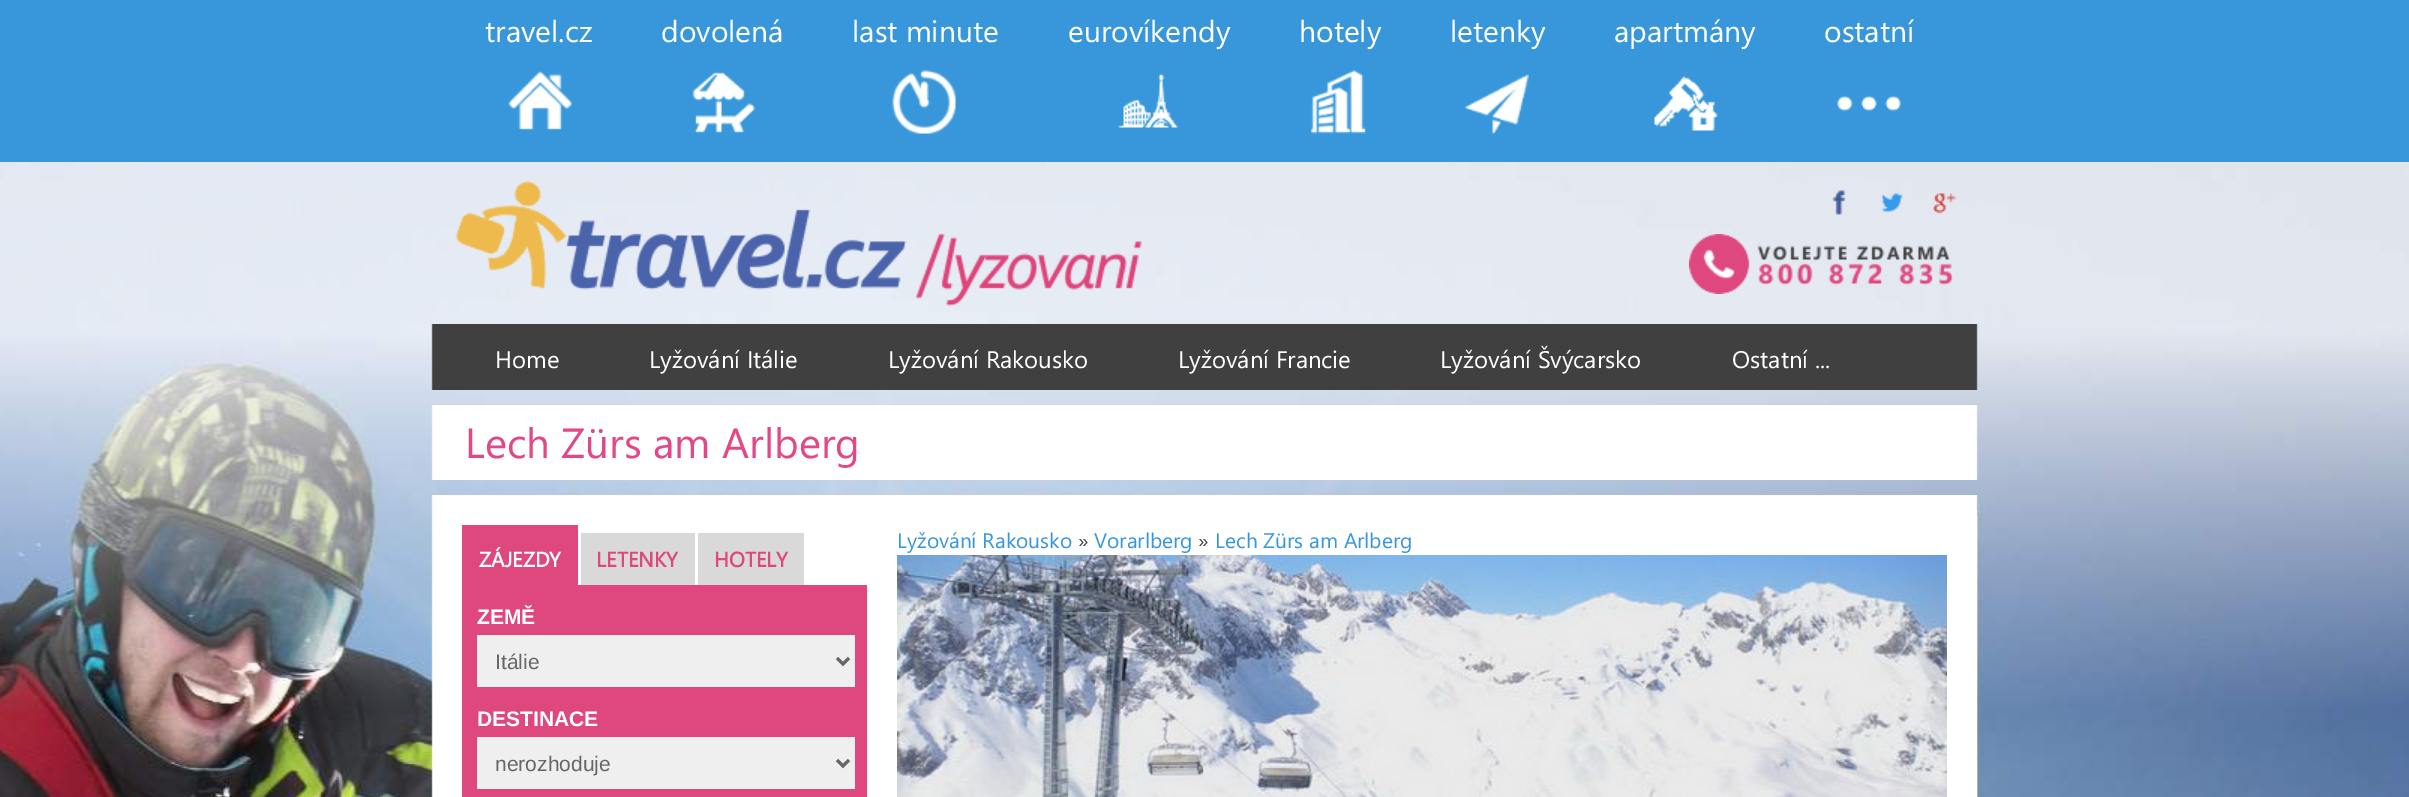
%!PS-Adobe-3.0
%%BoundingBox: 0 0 2409 797
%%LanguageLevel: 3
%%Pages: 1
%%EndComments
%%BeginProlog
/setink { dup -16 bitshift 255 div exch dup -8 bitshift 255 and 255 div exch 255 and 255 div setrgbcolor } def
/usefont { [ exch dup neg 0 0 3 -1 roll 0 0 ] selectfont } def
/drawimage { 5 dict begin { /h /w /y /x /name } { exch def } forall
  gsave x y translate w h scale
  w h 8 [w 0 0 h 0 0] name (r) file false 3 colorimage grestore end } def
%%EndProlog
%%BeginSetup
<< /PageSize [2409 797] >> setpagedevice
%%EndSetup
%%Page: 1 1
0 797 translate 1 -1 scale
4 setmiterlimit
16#FFFFFF setink
0 0 2409 797 rectfill
(img1.raw) 0 162 2409 635 drawimage
16#3897DA setink
0 0 2409 162 rectfill
(img2.raw) 508 71 64 59 drawimage
/SegoeUI-Regular 30 usefont
16#FFFFFF setink
485 42 moveto (travel.cz) show
(img3.raw) 692 71 63 62 drawimage
661 42 moveto (dovolená) show
(img4.raw) 892 70 64 64 drawimage
852 42 moveto (last minute) show
(img5.raw) 1118 73 60 55 drawimage
1068 42 moveto (eurovíkendy) show
(img6.raw) 1310 70 56 64 drawimage
1299 42 moveto (hotely) show
(img7.raw) 1465 74 64 60 drawimage
1450 42 moveto (letenky) show
(img8.raw) 1654 76 64 55 drawimage
1614 42 moveto (apartmány) show
(img9.raw) 1837 95 64 17 drawimage
1824 42 moveto (ostatní) show
(img10.raw) 455 181 452 109 drawimage
(img11.raw) 1832 190 14 25 drawimage
(img12.raw) 1881 193 22 19 drawimage
(img13.raw) 1933 193 24 21 drawimage
(img14.raw) 915 233 227 74 drawimage
(img15.raw) 1689 234 264 60 drawimage
(img16.raw) 431 324 1547 66 drawimage
/SegoeUI-Regular 24 usefont
[
    [(Home) 495 368]
    [(Lyžování Itálie) 649 368]
    [(Lyžování Rakousko) 888 368]
    [(Lyžování Francie) 1178 368]
    [(Lyžování Švýcarsko) 1440 368]
    [(Ostatní ...) 1732 368]
] { aload pop moveto show } forall
(img17.raw) 431 405 1547 75 drawimage
(img18.raw) 431 495 1547 302 drawimage
/SegoeUI-Regular 21 usefont
16#3897DA setink
897 548 moveto (Lyžování Rakousko) show
16#404040 setink
1078 548 moveto (») show
16#3897DA setink
1094 548 moveto (Vorarlberg) show
16#404040 setink
1198 548 moveto (») show
16#3897DA setink
1215 548 moveto (Lech Zürs am Arlberg) show
(img19.raw) 897 555 1050 242 drawimage
16#DF487E setink
462 525 116 60 rectfill
/SegoeUI-Bold 21 usefont
16#FFFFFF setink
479 567 moveto (ZÁJEZDY) show
16#D9D9D9 setink
581 533 114 52 rectfill
16#DF487E setink
596 567 moveto (LETENKY) show
16#D9D9D9 setink
698 533 106 52 rectfill
16#DF487E setink
714 567 moveto (HOTELY) show
462 585 405 212 rectfill
/LiberationSans-Bold 21 usefont
16#FFFFFF setink
477 624 moveto (ZEMĚ) show
16#EFEFEF setink
477 635 378 52 rectfill
16#666666 setink
3 setlinewidth
837 658 moveto 843 664 lineto 849 658 lineto stroke
/LiberationSans-Regular 21 usefont
495 669 moveto (Itálie) show
/LiberationSans-Bold 21 usefont
16#FFFFFF setink
477 726 moveto (DESTINACE) show
16#EFEFEF setink
477 737 378 52 rectfill
16#666666 setink
837 760 moveto 843 766 lineto 849 760 lineto stroke
/LiberationSans-Regular 21 usefont
495 771 moveto (nerozhoduje) show
/SegoeUI-Regular 42 usefont
16#E24888 setink
465 458 moveto (Lech Zürs am Arlberg) show
showpage
%%EOF
